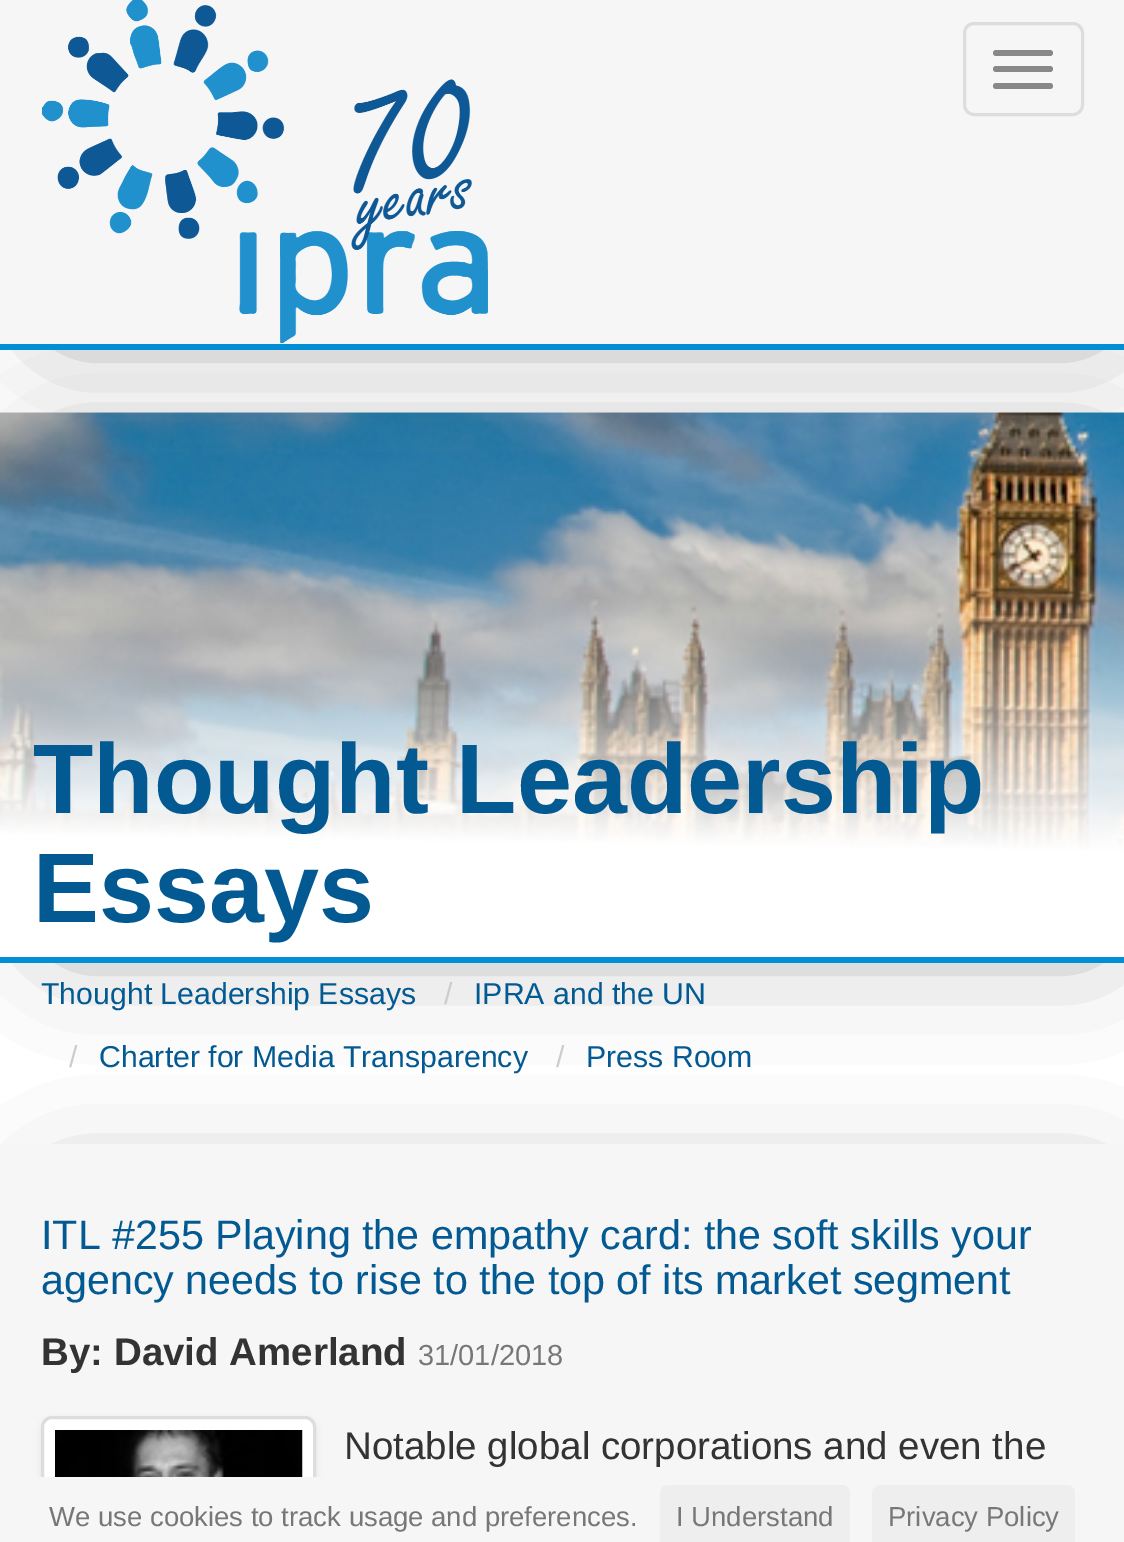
%!PS-Adobe-3.0
%%BoundingBox: 0 0 1124 1542
%%LanguageLevel: 3
%%Pages: 1
%%EndComments
%%BeginProlog
/setink { dup -16 bitshift 255 div exch dup -8 bitshift 255 and 255 div exch 255 and 255 div setrgbcolor } def
/usefont { [ exch dup neg 0 0 3 -1 roll 0 0 ] selectfont } def
/setalpha { dup .setfillconstantalpha .setstrokeconstantalpha } def
/rrect { 5 dict begin { /r /h /w /y /x } { exch def } forall
  x r add y moveto x w add y 2 copy h add r arct x w add y h add x 1 index r arct
  x y h add x y r arct x y 2 copy exch w add exch r arct closepath end } def
/softshadow { 12 dict begin { /a /b /q /h /w /y /x } { exch def } forall gsave /was 0 def
  9 -2 -9 { dup b mul 4 div /e exch def 1 sub .425 mul 2.718 exch exp 1 add a .99 .min exch div /now exch def
    1 1 now sub 1 was sub div sub setalpha /was now def
    w h .min e 2 mul add 0 gt { x e sub y e sub w e 2 mul add h e 2 mul add
      q e add b .6 mul add w h .min 2 div e add .min 0 .max rrect fill } if } for grestore end } def
/drawimage { 5 dict begin { /h /w /y /x /name } { exch def } forall
  gsave x y translate w h scale
  w h 8 [w 0 0 h 0 0] name (r) file false 3 colorimage grestore end } def
%%EndProlog
%%BeginSetup
<< /PageSize [1124 1542] /PageUsesTransparency true >> setpagedevice
%%EndSetup
%%Page: 1 1
0 .pushpdf14devicefilter
0 1542 translate 1 -1 scale
4 setmiterlimit
16#FFFFFF setink
0 0 1124 1542 rectfill
16#8F8F8F setink
63 476 1032 456 0 59 1 softshadow
(img2.raw) 0 412 1124 545 drawimage
63 63 1032 256 0 59 1 softshadow
16#F6F6F6 setink
0 0 1124 344 rectfill
16#008ED6 setink
0 344 1124 6 rectfill
(img1.raw) 42 0 446 344 drawimage
16#DDDDDD setink
3 setlinewidth
964.5 23.5 118 91 9.5 rrect stroke
16#888888 setink
993 50 60 6 3 rrect fill
993 66 60 6 3 rrect fill
993 83 60 6 3 rrect fill
16#008ED6 setink
0 957 1124 6 rectfill
/LiberationSans-Bold 99 usefont
16#035992 setink
33 813 moveto (Thought Leadership) show
33 922 moveto (Essays) show
/LiberationSans-Regular 30.25 usefont
41 1004 moveto (Thought Leadership Essays) show
16#CCCCCC setink
444 1004 moveto (/) show
16#035992 setink
474 1004 moveto (IPRA and the UN) show
16#8F8F8F setink
63 1207 1032 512 0 59 1 softshadow
16#CCCCCC setink
69 1067 moveto (/) show
16#035992 setink
99 1067 moveto (Charter for Media Transparency) show
16#CCCCCC setink
556 1067 moveto (/) show
16#035992 setink
586 1067 moveto (Press Room) show
16#F6F6F6 setink
0 1144 1124 333 rectfill
/LiberationSans-Regular 41.25 usefont
16#035992 setink
41 1249 moveto (ITL #255 Playing the empathy card: the soft skills your) show
41 1294 moveto (agency needs to rise to the top of its market segment) show
/LiberationSans-Bold 38.5 usefont
16#333333 setink
41 1365 moveto (By: David Amerland) show
/LiberationSans-Regular 29 usefont
16#777777 setink
418 1365 moveto (31/01/2018) show
16#000000 setink
41 1419 275 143 11 3 0.07 softshadow
16#FFFFFF setink
42.5 1417.5 272 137 9.5 rrect gsave fill grestore
16#DDDDDD setink
stroke
(img3.raw) 55 1430 248 47 drawimage
/LiberationSans-Regular 38.5 usefont
16#333333 setink
344 1459 moveto (Notable global corporations and even the) show
16#F6F6F6 setink
0 1477 1124 65 rectfill
/LiberationSans-Regular 27.5 usefont
16#777777 setink
49 1526 moveto (We use cookies to track usage and preferences.) show
16#EEEEEE setink
660 1485 190 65 8 rrect fill
16#777777 setink
676 1526 moveto (I Understand) show
16#EEEEEE setink
872 1485 203 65 8 rrect fill
16#777777 setink
888 1526 moveto (Privacy Policy) show
.poppdf14devicefilter showpage
%%EOF
